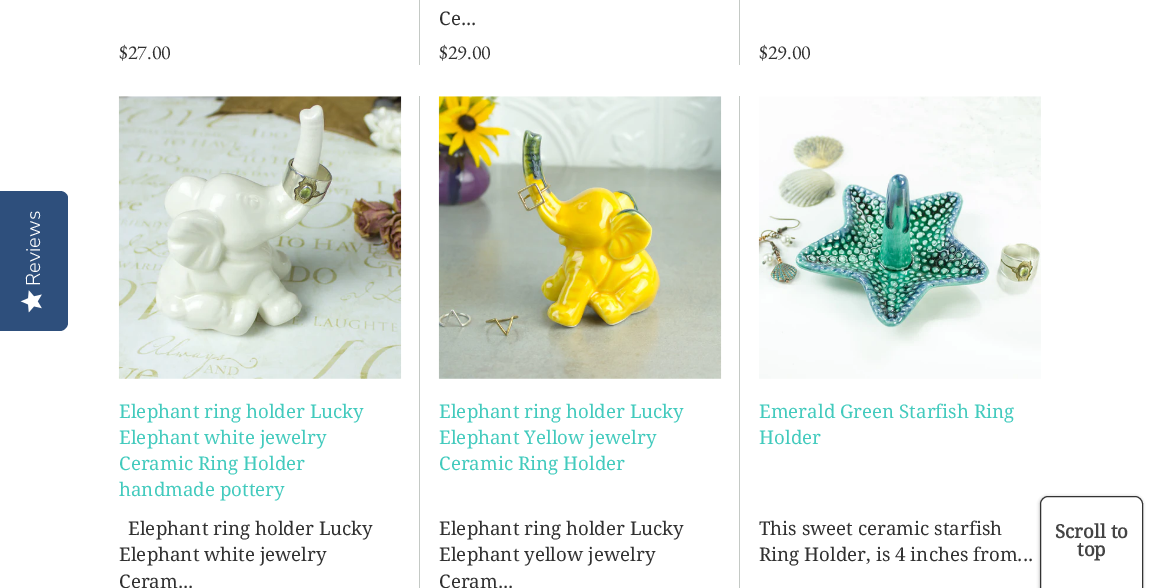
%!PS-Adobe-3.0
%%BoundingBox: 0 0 1160 588
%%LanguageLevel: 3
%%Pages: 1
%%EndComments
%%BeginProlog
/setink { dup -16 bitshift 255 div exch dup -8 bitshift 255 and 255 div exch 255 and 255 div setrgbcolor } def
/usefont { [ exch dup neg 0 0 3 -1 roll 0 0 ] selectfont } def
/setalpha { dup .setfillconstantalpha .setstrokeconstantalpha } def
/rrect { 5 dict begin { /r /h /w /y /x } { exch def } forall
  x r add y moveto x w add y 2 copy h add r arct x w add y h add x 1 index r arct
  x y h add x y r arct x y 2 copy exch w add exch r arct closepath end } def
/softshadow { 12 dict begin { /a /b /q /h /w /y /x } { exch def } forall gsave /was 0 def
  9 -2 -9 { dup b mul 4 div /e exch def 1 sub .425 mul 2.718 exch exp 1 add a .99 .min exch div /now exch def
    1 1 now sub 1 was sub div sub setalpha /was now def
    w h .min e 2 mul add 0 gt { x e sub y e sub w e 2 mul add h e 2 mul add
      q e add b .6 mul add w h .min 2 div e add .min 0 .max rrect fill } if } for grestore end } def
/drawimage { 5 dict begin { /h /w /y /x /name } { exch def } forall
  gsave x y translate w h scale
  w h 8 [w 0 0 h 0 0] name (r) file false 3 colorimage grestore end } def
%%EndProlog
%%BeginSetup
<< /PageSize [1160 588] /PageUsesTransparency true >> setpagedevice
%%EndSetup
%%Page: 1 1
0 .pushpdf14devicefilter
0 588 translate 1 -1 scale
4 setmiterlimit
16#FFFFFF setink
0 0 1160 588 rectfill
16#2E4F7C setink
0 331 moveto 0 191 lineto 60 191 lineto 64 191 68 194 68 198 curveto 68 323 lineto 68 327 64 331 60 331 curveto closepath fill
/NunitoSans-Light 20 usefont
16#FFFFFF setink
gsave 40 286 translate -90 rotate 0 0 moveto (Reviews) show grestore
(img1.raw) 20 290 22 23 drawimage
/EBGaramond-Regular 20 usefont
16#303030 setink
119 59 moveto ($27.00) show
16#C4C9C5 setink
419 0 1 65 rectfill
/DroidSerif-Regular 18.75 usefont
16#303030 setink
439 25 moveto (Ce...) show
16#C4C9C5 setink
739 0 1 65 rectfill
/EBGaramond-Regular 20 usefont
16#303030 setink
439 59 moveto ($29.00) show
759 59 moveto ($29.00) show
(img2.raw) 118 96 284 283 drawimage
16#C4C9C5 setink
419 96 1 492 rectfill
/DroidSerif-Regular 18.75 usefont
16#42CABD setink
[
    [(Elephant ring holder Lucky) 119 418]
    [(Elephant white jewelry) 119 444]
    [(Ceramic Ring Holder) 119 470]
    [(handmade pottery) 119 496]
] { aload pop moveto show } forall
16#303030 setink
[
    [(Elephant ring holder Lucky) 128 535]
    [(Elephant white jewelry) 119 561]
    [(Ceram...) 119 588]
] { aload pop moveto show } forall
(img3.raw) 438 96 284 283 drawimage
16#C4C9C5 setink
739 96 1 492 rectfill
16#42CABD setink
[
    [(Elephant ring holder Lucky) 439 418]
    [(Elephant Yellow jewelry) 439 444]
    [(Ceramic Ring Holder) 439 470]
] { aload pop moveto show } forall
16#303030 setink
[
    [(Elephant ring holder Lucky) 439 535]
    [(Elephant yellow jewelry) 439 561]
    [(Ceram...) 439 588]
] { aload pop moveto show } forall
(img4.raw) 758 96 283 283 drawimage
16#42CABD setink
759 418 moveto (Emerald Green Starfish Ring) show
759 444 moveto (Holder) show
16#303030 setink
759 535 moveto (This sweet ceramic starfish) show
759 561 moveto (Ring Holder, is 4 inches from...) show
16#555555 setink
1041 498 100 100 6 2 1 softshadow
16#FFFFFF setink
1048 496.5 moveto 1135 496.5 lineto 1139 496.5 1142.5 500 1142.5 504 curveto 1142.5 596.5 lineto 1040.5 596.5 lineto 1040.5 504 lineto 1040.5 500 1044 496.5 1048 496.5 curveto closepath gsave fill grestore
16#333333 setink
stroke
/DroidSerif-Bold 18.75 usefont
16#444444 setink
1055 538 moveto (Scroll to) show
1077 556 moveto (top) show
.poppdf14devicefilter showpage
%%EOF
